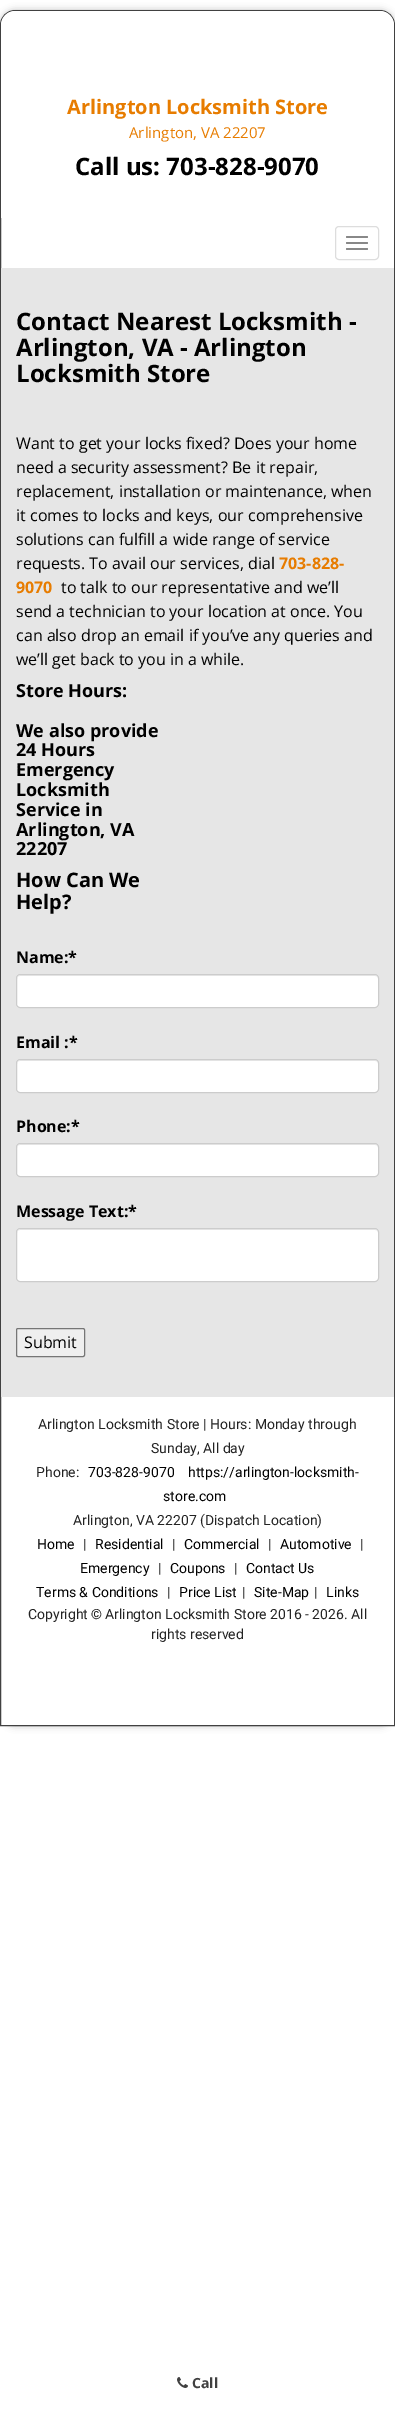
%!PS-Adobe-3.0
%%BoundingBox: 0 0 395 2412
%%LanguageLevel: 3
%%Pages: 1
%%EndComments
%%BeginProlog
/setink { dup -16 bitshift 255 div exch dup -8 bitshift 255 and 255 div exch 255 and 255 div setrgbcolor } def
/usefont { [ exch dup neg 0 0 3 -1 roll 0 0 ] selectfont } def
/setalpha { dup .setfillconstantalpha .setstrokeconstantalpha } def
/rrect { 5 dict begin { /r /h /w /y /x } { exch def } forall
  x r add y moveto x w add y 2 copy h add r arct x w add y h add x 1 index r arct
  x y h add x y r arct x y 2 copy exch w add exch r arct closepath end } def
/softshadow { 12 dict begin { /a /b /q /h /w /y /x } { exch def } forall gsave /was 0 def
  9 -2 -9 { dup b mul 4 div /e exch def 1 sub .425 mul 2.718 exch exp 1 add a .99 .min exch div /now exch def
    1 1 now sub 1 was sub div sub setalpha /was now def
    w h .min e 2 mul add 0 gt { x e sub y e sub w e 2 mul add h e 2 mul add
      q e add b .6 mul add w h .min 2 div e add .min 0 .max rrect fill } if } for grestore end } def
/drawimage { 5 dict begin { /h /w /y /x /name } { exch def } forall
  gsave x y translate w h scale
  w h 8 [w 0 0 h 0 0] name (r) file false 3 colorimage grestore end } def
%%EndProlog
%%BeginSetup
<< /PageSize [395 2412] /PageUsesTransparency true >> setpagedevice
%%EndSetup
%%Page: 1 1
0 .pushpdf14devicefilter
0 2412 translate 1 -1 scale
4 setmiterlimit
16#FFFFFF setink
0 0 395 2412 rectfill
gsave
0 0 moveto 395 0 lineto 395 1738 lineto 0 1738 lineto closepath 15 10 moveto 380 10 lineto 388.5 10 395 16.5 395 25 curveto 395 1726 lineto 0 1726 lineto 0 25 lineto 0 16.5 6.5 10 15 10 curveto closepath eoclip newpath
16#BFBFBF setink
0 10 395 1716 15 3.5 1 softshadow
grestore
16#414141 setink
15 10.5 moveto 380 10.5 lineto 388 10.5 394.5 17 394.5 25 curveto 394.5 1725.5 lineto 0.5 1725.5 lineto 0.5 25 lineto 0.5 17 7 10.5 15 10.5 curveto closepath stroke
16#FFFFFF setink
15 11 moveto 380 11 lineto 387.5 11 394 17.5 394 25 curveto 394 218 lineto 1 218 lineto 1 25 lineto 1 17.5 7.5 11 15 11 curveto closepath fill
/OpenSans-Bold 20 usefont
16#E77C00 setink
67 114 moveto (Arlington Locksmith Store) show
/OpenSans-Regular 15 usefont
129 138 moveto (Arlington, VA 22207) show
/OpenSans-Bold 24 usefont
16#000000 setink
75 175 moveto (Call us: 703-828-9070) show
16#DDDDDD setink
335.5 226.5 43 33 3.5 rrect stroke
16#888888 setink
346 236 22 2 1 rrect fill
346 242 22 2 1 rrect fill
346 248 22 2 1 rrect fill
16#E6E6E6 setink
1 268 393 1129 rectfill
16#000000 setink
[
    [(Contact Nearest Locksmith -) 16 330]
    [(Arlington, VA - Arlington) 16 356]
    [(Locksmith Store) 16 382]
] { aload pop moveto show } forall
/OpenSans-Regular 16 usefont
[
    [(Want to get your locks fixed? Does your home) 16 449]
    [(need a security assessment? Be it repair,) 16 473]
    [(replacement, installation or maintenance, when) 16 497]
    [(it comes to locks and keys, our comprehensive) 16 521]
    [(solutions can fulfill a wide range of service) 16 545]
    [(requests. To avail our services, dial) 16 569]
] { aload pop moveto show } forall
/OpenSans-Bold 16 usefont
16#E77C00 setink
279 569 moveto (703-828-) show
16 593 moveto (9070) show
/OpenSans-Regular 16 usefont
16#000000 setink
[
    [(to talk to our representative and we’ll) 61 593]
    [(send a technician to your location at once. You) 16 617]
    [(can also drop an email if you’ve any queries and) 16 641]
    [(we’ll get back to you in a while.) 16 665]
] { aload pop moveto show } forall
/OpenSans-Bold 18 usefont
[
    [(Store Hours:) 16 697]
    [(We also provide) 16 737]
    [(24 Hours) 16 756]
    [(Emergency) 16 776]
    [(Locksmith) 16 796]
    [(Service in) 16 816]
    [(Arlington, VA) 16 836]
    [(22207) 16 855]
] { aload pop moveto show } forall
/OpenSans-Bold 20 usefont
16 887 moveto (How Can We) show
16 909 moveto (Help?) show
/OpenSans-Bold 16 usefont
16 963 moveto (Name:*) show
16#FFFFFF setink
16 974 363 34 4 rrect fill
16#ECECEC setink
20 976 moveto 375 976 lineto 377 976 378 977 378 979 curveto 378 977 377 975 375 975 curveto 20 975 lineto 18 976 lineto 17 979 lineto 17 977 18 976 20 976 curveto closepath fill
16#CCCCCC setink
16.5 974.5 362 33 3.5 rrect stroke
16#000000 setink
16 1048 moveto (Email :*) show
16#FFFFFF setink
16 1059 363 34 4 rrect fill
16#ECECEC setink
20 1061 moveto 375 1061 lineto 377 1061 378 1062 378 1064 curveto 378 1062 377 1060 375 1060 curveto 20 1060 lineto 18 1061 lineto 17 1064 lineto 17 1062 18 1061 20 1061 curveto closepath fill
16#CCCCCC setink
16.5 1059.5 362 33 3.5 rrect stroke
16#000000 setink
16 1132 moveto (Phone:*) show
16#FFFFFF setink
16 1143 363 34 4 rrect fill
16#ECECEC setink
20 1145 moveto 375 1145 lineto 377 1145 378 1146 378 1148 curveto 378 1146 377 1144 375 1144 curveto 20 1144 lineto 18 1145 lineto 17 1148 lineto 17 1146 18 1145 20 1145 curveto closepath fill
16#CCCCCC setink
16.5 1143.5 362 33 3.5 rrect stroke
16#000000 setink
16 1217 moveto (Message Text:*) show
16#FFFFFF setink
16 1228 363 54 4 rrect fill
16#ECECEC setink
20 1230 moveto 375 1230 lineto 377 1230 378 1231 378 1233 curveto 378 1231 377 1229 375 1229 curveto 20 1229 lineto 18 1230 lineto 17 1233 lineto 17 1231 18 1230 20 1230 curveto closepath fill
16#CCCCCC setink
16.5 1228.5 362 53 3.5 rrect stroke
16#EFEFEF setink
16.5 1328.5 68 28 1.5 rrect gsave fill grestore
16#767676 setink
stroke
/OpenSans-Regular 16 usefont
16#000000 setink
24 1348 moveto (Submit) show
/Roboto-Regular 14 usefont
16#232323 setink
[
    [(Arlington Locksmith Store | Hours: Monday through) 38 1429]
    [(Sunday, All day) 151 1453]
    [(Phone:) 36 1477]
] { aload pop moveto show } forall
16#000000 setink
[
    [(703-828-9070) 88 1477]
    [(https://arlington-locksmith-) 188 1477]
    [(store.com) 163 1501]
] { aload pop moveto show } forall
16#232323 setink
73 1525 moveto (Arlington, VA 22207 \(Dispatch Location\)) show
16#000000 setink
37 1549 moveto (Home) show
16#232323 setink
83 1549 moveto (|) show
16#000000 setink
95 1549 moveto (Residential) show
16#232323 setink
172 1549 moveto (|) show
16#000000 setink
184 1549 moveto (Commercial) show
16#232323 setink
268 1549 moveto (|) show
16#000000 setink
280 1549 moveto (Automotive) show
16#232323 setink
360 1549 moveto (|) show
16#000000 setink
80 1573 moveto (Emergency) show
16#232323 setink
158 1573 moveto (|) show
16#000000 setink
170 1573 moveto (Coupons) show
16#232323 setink
234 1573 moveto (|) show
16#000000 setink
246 1573 moveto (Contact Us) show
36 1597 moveto (Terms & Conditions) show
16#232323 setink
167 1597 moveto (|) show
16#000000 setink
179 1597 moveto (Price List) show
16#232323 setink
242 1597 moveto (|) show
16#000000 setink
254 1597 moveto (Site-Map) show
16#232323 setink
314 1597 moveto (|) show
16#000000 setink
326 1597 moveto (Links) show
16#232323 setink
28 1619 moveto (Copyright) show
/Roboto-Bold 14 usefont
91 1619 moveto (©) show
/Roboto-Regular 14 usefont
105 1619 moveto (Arlington Locksmith Store 2016 - 2026. All) show
151 1639 moveto (rights reserved) show
(img1.raw) 177 2377 11 11 drawimage
/OpenSans-Bold 14 usefont
16#404040 setink
192 2388 moveto (Call) show
.poppdf14devicefilter showpage
%%EOF
